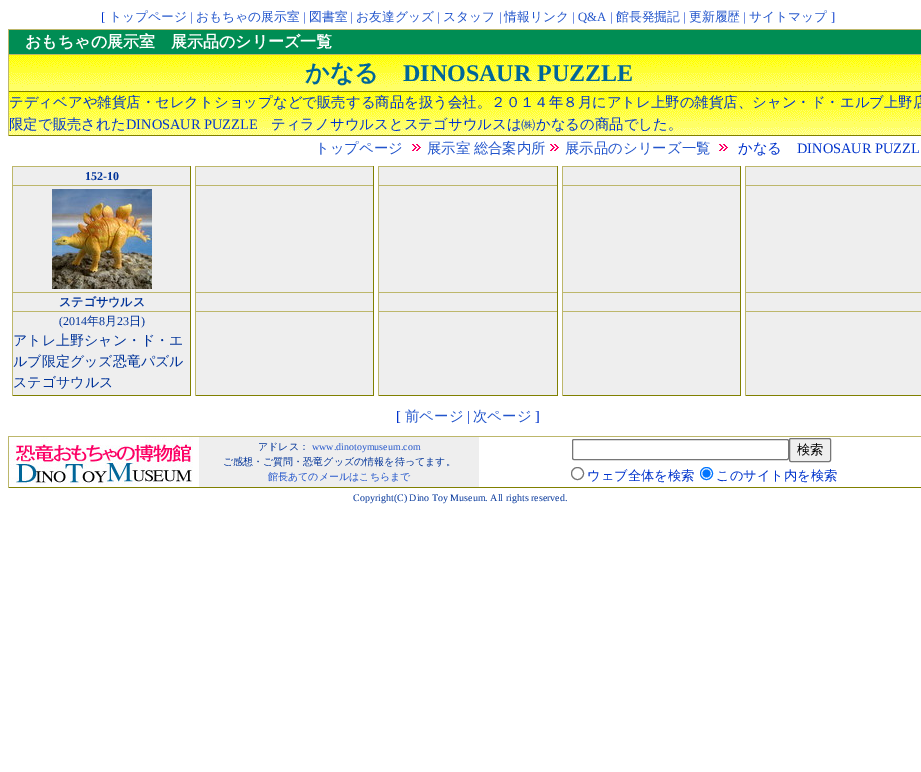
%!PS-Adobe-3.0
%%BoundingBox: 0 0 921 772
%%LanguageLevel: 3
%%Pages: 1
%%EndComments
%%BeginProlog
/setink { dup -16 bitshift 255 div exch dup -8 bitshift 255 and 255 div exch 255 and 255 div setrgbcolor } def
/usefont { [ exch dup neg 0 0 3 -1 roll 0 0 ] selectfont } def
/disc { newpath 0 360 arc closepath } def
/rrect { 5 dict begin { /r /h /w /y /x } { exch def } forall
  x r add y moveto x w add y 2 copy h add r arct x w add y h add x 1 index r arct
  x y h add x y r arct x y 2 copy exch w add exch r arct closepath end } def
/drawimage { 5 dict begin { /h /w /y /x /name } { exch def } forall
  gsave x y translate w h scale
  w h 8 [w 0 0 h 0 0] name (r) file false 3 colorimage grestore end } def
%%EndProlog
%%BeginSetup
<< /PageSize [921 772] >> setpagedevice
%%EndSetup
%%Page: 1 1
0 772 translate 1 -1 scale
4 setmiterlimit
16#FFFFFF setink
0 0 921 772 rectfill
/LiberationSerif-Regular 12.75 usefont
16#0033CC setink
101 21 moveto ([) show
/WenQuanYiZenHei-Medium 12.75 usefont
16#2255CC setink
109 21 moveto (トップページ) show
/LiberationSerif-Regular 12.75 usefont
16#0033CC setink
190 21 moveto (|) show
/WenQuanYiZenHei-Medium 12.75 usefont
16#2255CC setink
196 21 moveto (おもちゃの展示室) show
/LiberationSerif-Regular 12.75 usefont
16#0033CC setink
303 21 moveto (|) show
/WenQuanYiZenHei-Medium 12.75 usefont
16#2255CC setink
309 21 moveto (図書室) show
/LiberationSerif-Regular 12.75 usefont
16#0033CC setink
350 21 moveto (|) show
/WenQuanYiZenHei-Medium 12.75 usefont
16#2255CC setink
356 21 moveto (お友達グッズ) show
/LiberationSerif-Regular 12.75 usefont
16#0033CC setink
437 21 moveto (|) show
/WenQuanYiZenHei-Medium 12.75 usefont
16#2255CC setink
443 21 moveto (スタッフ) show
/LiberationSerif-Regular 12.75 usefont
16#0033CC setink
499 21 moveto (|) show
/WenQuanYiZenHei-Medium 12.75 usefont
16#2255CC setink
504 21 moveto (情報リンク) show
/LiberationSerif-Regular 12.75 usefont
16#0033CC setink
572 21 moveto (|) show
16#2255CC setink
578 21 moveto (Q&A) show
16#0033CC setink
610 21 moveto (|) show
/WenQuanYiZenHei-Medium 12.75 usefont
16#2255CC setink
616 21 moveto (館長発掘記) show
/LiberationSerif-Regular 12.75 usefont
16#0033CC setink
683 21 moveto (|) show
/WenQuanYiZenHei-Medium 12.75 usefont
16#2255CC setink
689 21 moveto (更新履歴) show
/LiberationSerif-Regular 12.75 usefont
16#0033CC setink
743 21 moveto (|) show
/WenQuanYiZenHei-Medium 12.75 usefont
16#2255CC setink
749 21 moveto (サイトマップ) show
/LiberationSerif-Regular 12.75 usefont
16#0033CC setink
831 21 moveto (]) show
[
    [9 30 912 24 16#008D54]
    [8 29 913 1 16#BDB76B]
    [8 29 1 25 16#BDB76B]
] { aload pop setink rectfill } forall
/WenQuanYiZenHei-Bold 16 usefont
16#FFFFFF setink
25 47 moveto (おもちゃの展示室　展示品のシリーズ一覧) show
(img1.raw) 9 55 912 36 drawimage
[
    [8 54 913 1 16#BDB76B]
    [8 91 913 1 16#808000]
    [8 54 1 38 16#BDB76B]
] { aload pop setink rectfill } forall
/WenQuanYiZenHei-Bold 24 usefont
16#006699 setink
305 81 moveto (かなる) show
/LiberationSerif-Bold 24 usefont
403 81 moveto (DINOSAUR PUZZLE) show
(img2.raw) 9 92 912 43 drawimage
16#808000 setink
8 135 913 1 rectfill
16#BDB76B setink
8 92 1 44 rectfill
/WenQuanYiZenHei-Medium 14.4 usefont
16#0033CC setink
9 107 moveto (テディベアや雑貨店・セレクトショップなどで販売する商品を扱う会社。２０１４年８月にアトレ上野の雑貨店、シャン・ド・エルブ上野店) show
9 129 moveto (限定で販売された) show
/LiberationSerif-Regular 14.4 usefont
126 129 moveto (DINOSAUR PUZZLE) show
/WenQuanYiZenHei-Medium 14.4 usefont
271 129 moveto (ティラノサウルスとステゴサウルスは㈱かなるの商品でした。) show
16#2255CC setink
315 153 moveto (トップページ) show
(img3.raw) 412 144 9 7 drawimage
427 153 moveto -1 0 32 (展示室 総合案内所) widthshow
(img3.raw) 550 144 9 7 drawimage
565 153 moveto (展示品のシリーズ一覧) show
(img3.raw) 719 144 9 7 drawimage
16#0033CC setink
738 153 moveto (かなる) show
/LiberationSerif-Regular 14.4 usefont
797 153 moveto (DINOSAUR PUZZL) show
[
    [13 167 177 228 16#EEEEEE]
    [12 166 179 1 16#BDB76B]
    [190 166 1 230 16#808000]
    [12 395 179 1 16#808000]
    [12 166 1 230 16#BDB76B]
    [13 185 177 1 16#BDB76B]
] { aload pop setink rectfill } forall
/LiberationSerif-Bold 12 usefont
16#003399 setink
85 180 moveto (152-10) show
16#BDB76B setink
13 292 177 1 rectfill
(img4.raw) 52 189 100 100 drawimage
13 311 177 1 rectfill
/WenQuanYiZenHei-Bold 12 usefont
16#003399 setink
59 306 moveto (ステゴサウルス) show
/LiberationSerif-Regular 12 usefont
59 325 moveto (\(2014) show
/WenQuanYiZenHei-Medium 12 usefont
87 325 moveto (年) show
/LiberationSerif-Regular 12 usefont
99 325 moveto (8) show
/WenQuanYiZenHei-Medium 12 usefont
105 325 moveto (月) show
/LiberationSerif-Regular 12 usefont
117 325 moveto (23) show
/WenQuanYiZenHei-Medium 12 usefont
129 325 moveto (日) show
/LiberationSerif-Regular 12 usefont
141 325 moveto (\)) show
/WenQuanYiZenHei-Medium 14 usefont
[
    [(アトレ上野シャン・ド・エ) 13 345]
    [(ルブ限定グッズ恐竜パズル) 13 366]
    [(ステゴサウルス) 13 387]
] { aload pop moveto show } forall
[
    [196 167 177 228 16#EEEEEE]
    [195 166 179 1 16#BDB76B]
    [373 166 1 230 16#808000]
    [195 395 179 1 16#808000]
    [195 166 1 230 16#BDB76B]
    [196 185 177 1 16#BDB76B]
    [196 292 177 1 16#BDB76B]
    [196 311 177 1 16#BDB76B]
    [379 167 178 228 16#EEEEEE]
    [378 166 180 1 16#BDB76B]
    [557 166 1 230 16#808000]
    [378 395 180 1 16#808000]
    [378 166 1 230 16#BDB76B]
    [379 185 178 1 16#BDB76B]
    [379 292 178 1 16#BDB76B]
    [379 311 178 1 16#BDB76B]
    [563 167 177 228 16#EEEEEE]
    [562 166 179 1 16#BDB76B]
    [740 166 1 230 16#808000]
    [562 395 179 1 16#808000]
    [562 166 1 230 16#BDB76B]
    [563 185 177 1 16#BDB76B]
    [563 292 177 1 16#BDB76B]
    [563 311 177 1 16#BDB76B]
    [746 167 175 228 16#EEEEEE]
    [745 166 176 1 16#BDB76B]
    [745 395 176 1 16#808000]
    [745 166 1 230 16#BDB76B]
    [746 185 175 1 16#BDB76B]
    [746 292 175 1 16#BDB76B]
    [746 311 175 1 16#BDB76B]
] { aload pop setink rectfill } forall
/LiberationSerif-Regular 14.4 usefont
16#0033CC setink
396 421 moveto ([) show
/WenQuanYiZenHei-Medium 14.4 usefont
16#2255CC setink
405 421 moveto (前ページ) show
/LiberationSerif-Regular 14.4 usefont
16#0033CC setink
467 421 moveto (|) show
/WenQuanYiZenHei-Medium 14.4 usefont
16#2255CC setink
473 421 moveto (次ページ) show
/LiberationSerif-Regular 14.4 usefont
16#0033CC setink
535 421 moveto (]) show
[
    [8 436 913 1 16#BDB76B]
    [8 487 913 1 16#808000]
    [8 436 1 52 16#BDB76B]
] { aload pop setink rectfill } forall
(img5.raw) 9 437 184 48 drawimage
16#EEEEEE setink
199 437 280 50 rectfill
/WenQuanYiZenHei-Medium 10 usefont
16#003399 setink
258 450 moveto (アドレス：) show
/LiberationSerif-Regular 10 usefont
16#2255CC setink
312 450 moveto (www.dinotoymuseum.com) show
/WenQuanYiZenHei-Medium 10 usefont
16#003399 setink
223 465 moveto (ご感想・ご質問・恐竜グッズの情報を待ってます。) show
16#2255CC setink
268 480 moveto (館長あてのメールはこちらまで) show
16#767676 setink
572.5 439.5 216 20 1.5 rrect stroke
16#EFEFEF setink
789.5 438.5 41 23 1.5 rrect gsave fill grestore
16#767676 setink
stroke
/WenQuanYiZenHei-Medium 13.25 usefont
16#000000 setink
797 454 moveto (検索) show
16#767676 setink
577.5 473.5 6 disc stroke
16#0033CC setink
587 480 moveto (ウェブ全体を検索) show
16#0075FF setink
706.5 473.5 6 disc stroke
706.5 473.5 4 disc fill
16#0033CC setink
716 480 moveto (このサイト内を検索) show
/LiberationSerif-Regular 10 usefont
16#003399 setink
353 501 moveto (Copyright\(C\) Dino Toy Museum. All rights reserved.) show
showpage
%%EOF
